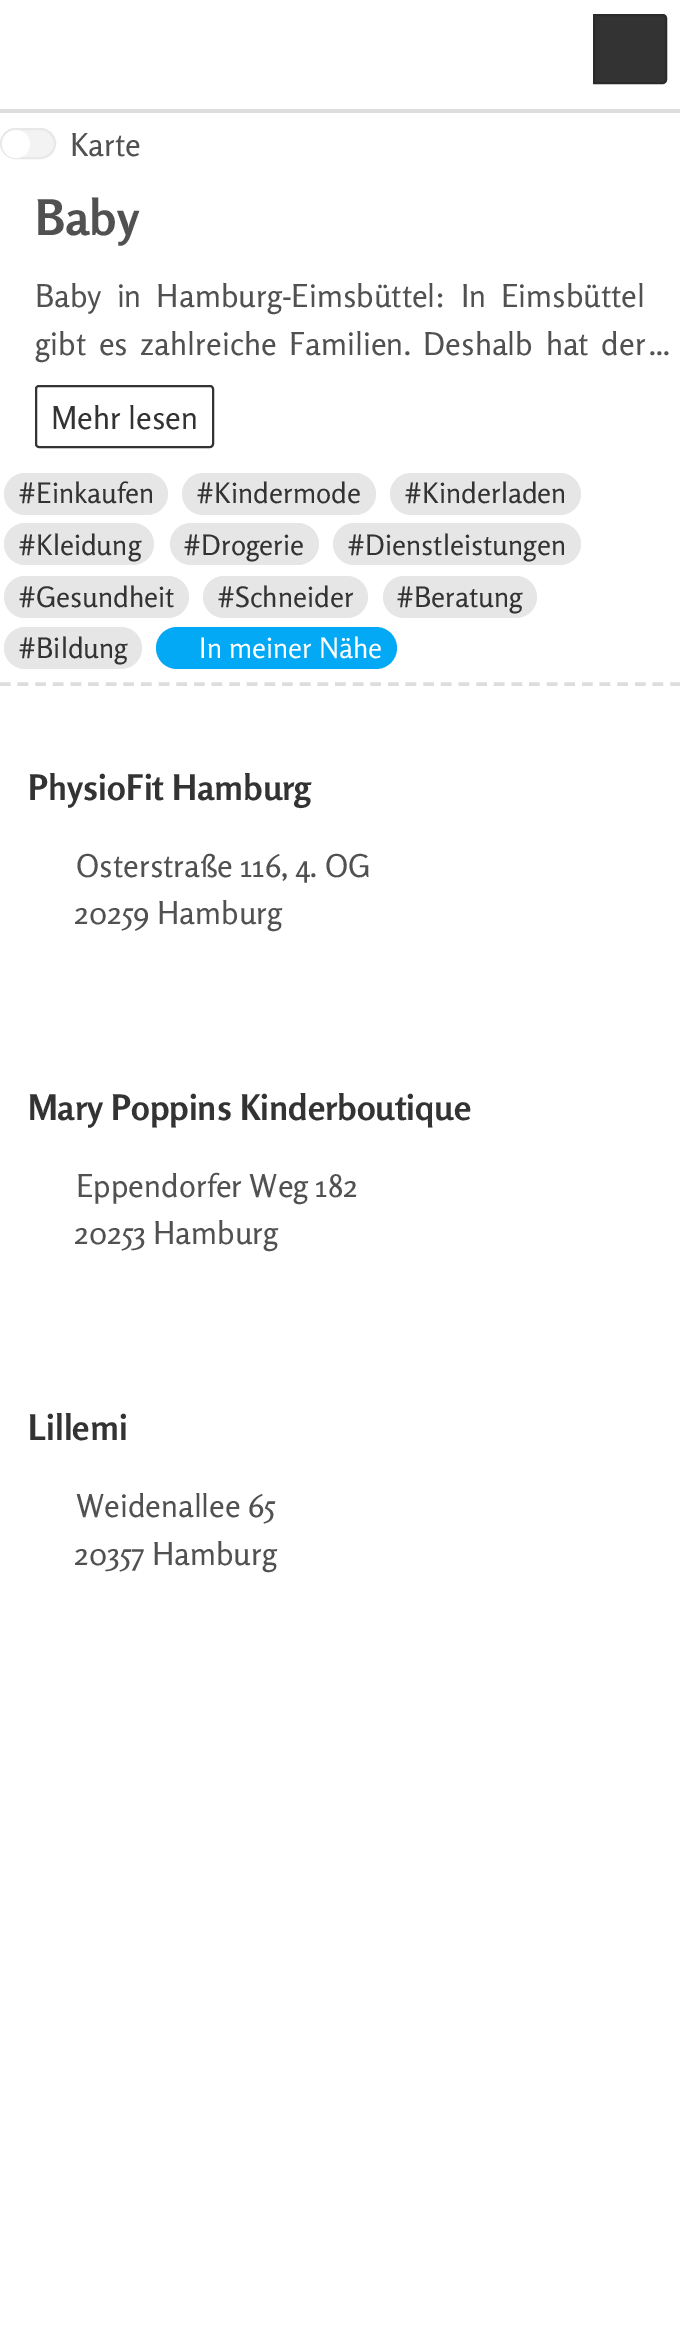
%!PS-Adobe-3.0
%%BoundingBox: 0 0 680 2346
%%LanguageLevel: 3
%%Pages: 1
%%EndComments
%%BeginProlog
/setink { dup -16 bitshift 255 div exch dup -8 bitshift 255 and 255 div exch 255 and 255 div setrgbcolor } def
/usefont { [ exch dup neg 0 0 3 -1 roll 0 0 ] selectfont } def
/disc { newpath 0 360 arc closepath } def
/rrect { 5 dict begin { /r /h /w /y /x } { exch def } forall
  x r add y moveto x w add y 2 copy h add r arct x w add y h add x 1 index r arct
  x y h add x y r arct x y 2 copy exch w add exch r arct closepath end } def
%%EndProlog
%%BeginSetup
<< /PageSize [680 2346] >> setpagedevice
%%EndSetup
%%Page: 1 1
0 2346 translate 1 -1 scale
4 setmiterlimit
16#FFFFFF setink
0 0 680 2346 rectfill
16#DDDDDD setink
0 109 680 4 rectfill
16#333333 setink
594 15 moveto 663 15 lineto 664.5 15 666 16.5 666 18 curveto 666 80 lineto 666 81.5 664.5 83 663 83 curveto 594 83 lineto closepath gsave fill grestore
16#2B2B2B setink
2 setlinewidth
stroke
16#F3F3F3 setink
1 129 54 29 14.5 rrect gsave fill grestore
16#E8E8E8 setink
stroke
16#FFFFFF setink
16 144 14 disc fill
/Rosario-Regular 31.5 usefont
16#515151 setink
70 156 moveto (Karte) show
/Rosario-Bold 49 usefont
35 235 moveto (Baby) show
/Rosario-Regular 31.5 usefont
35 307 moveto 7.5 0 32 (Baby in Hamburg-Eimsbüttel: In Eimsbüttel) widthshow
35 355 moveto 5.5 0 32 (gibt es zahlreiche Familien. Deshalb hat der) widthshow
649 355 moveto (...) show
16#333333 setink
36 386 177 61 3 rrect stroke
51 429 moveto (Mehr lesen) show
16#DDDDDD setink
3.5 setlinewidth
[10.5 7.14] 0 setdash
0 684 moveto 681 684 lineto stroke
16#E6E6E6 setink
4 473 164 42 21 rrect fill
/Rosario-Regular 28.25 usefont
16#333333 setink
18 503 moveto (#Einkaufen) show
16#E6E6E6 setink
182 473 194 42 21 rrect fill
16#333333 setink
196 503 moveto (#Kindermode) show
16#E6E6E6 setink
390 473 191 42 21 rrect fill
16#333333 setink
404 503 moveto (#Kinderladen) show
16#E6E6E6 setink
4 523 150 42 21 rrect fill
16#333333 setink
18 555 moveto (#Kleidung) show
16#E6E6E6 setink
170 523 149 42 21 rrect fill
16#333333 setink
183 555 moveto (#Drogerie) show
16#E6E6E6 setink
333 523 248 42 21 rrect fill
16#333333 setink
347 555 moveto (#Dienstleistungen) show
16#E6E6E6 setink
4 576 185 42 21 rrect fill
16#333333 setink
18 607 moveto (#Gesundheit) show
16#E6E6E6 setink
203 576 165 42 21 rrect fill
16#333333 setink
217 607 moveto (#Schneider) show
16#E6E6E6 setink
383 576 154 42 21 rrect fill
16#333333 setink
396 607 moveto (#Beratung) show
16#E6E6E6 setink
4 627 138 42 21 rrect fill
16#333333 setink
18 658 moveto (#Bildung) show
16#03A9F4 setink
156 627 241 42 21 rrect fill
16#FFFFFF setink
199 658 moveto (In meiner Nähe) show
/Rosario-Bold 35 usefont
16#333333 setink
28 800 moveto (PhysioFit Hamburg) show
/Rosario-Regular 31.5 usefont
16#515151 setink
76 877 moveto (Osterstraße 116, 4. OG) show
74 924 moveto (20259 Hamburg) show
/Rosario-Bold 35 usefont
16#333333 setink
28 1120 moveto (Mary Poppins Kinderboutique) show
/Rosario-Regular 31.5 usefont
16#515151 setink
76 1197 moveto (Eppendorfer Weg 182) show
74 1244 moveto (20253 Hamburg) show
/Rosario-Bold 35 usefont
16#333333 setink
28 1440 moveto (Lillemi) show
/Rosario-Regular 31.5 usefont
16#515151 setink
76 1517 moveto (Weidenallee 65) show
74 1565 moveto (20357 Hamburg) show
showpage
%%EOF
